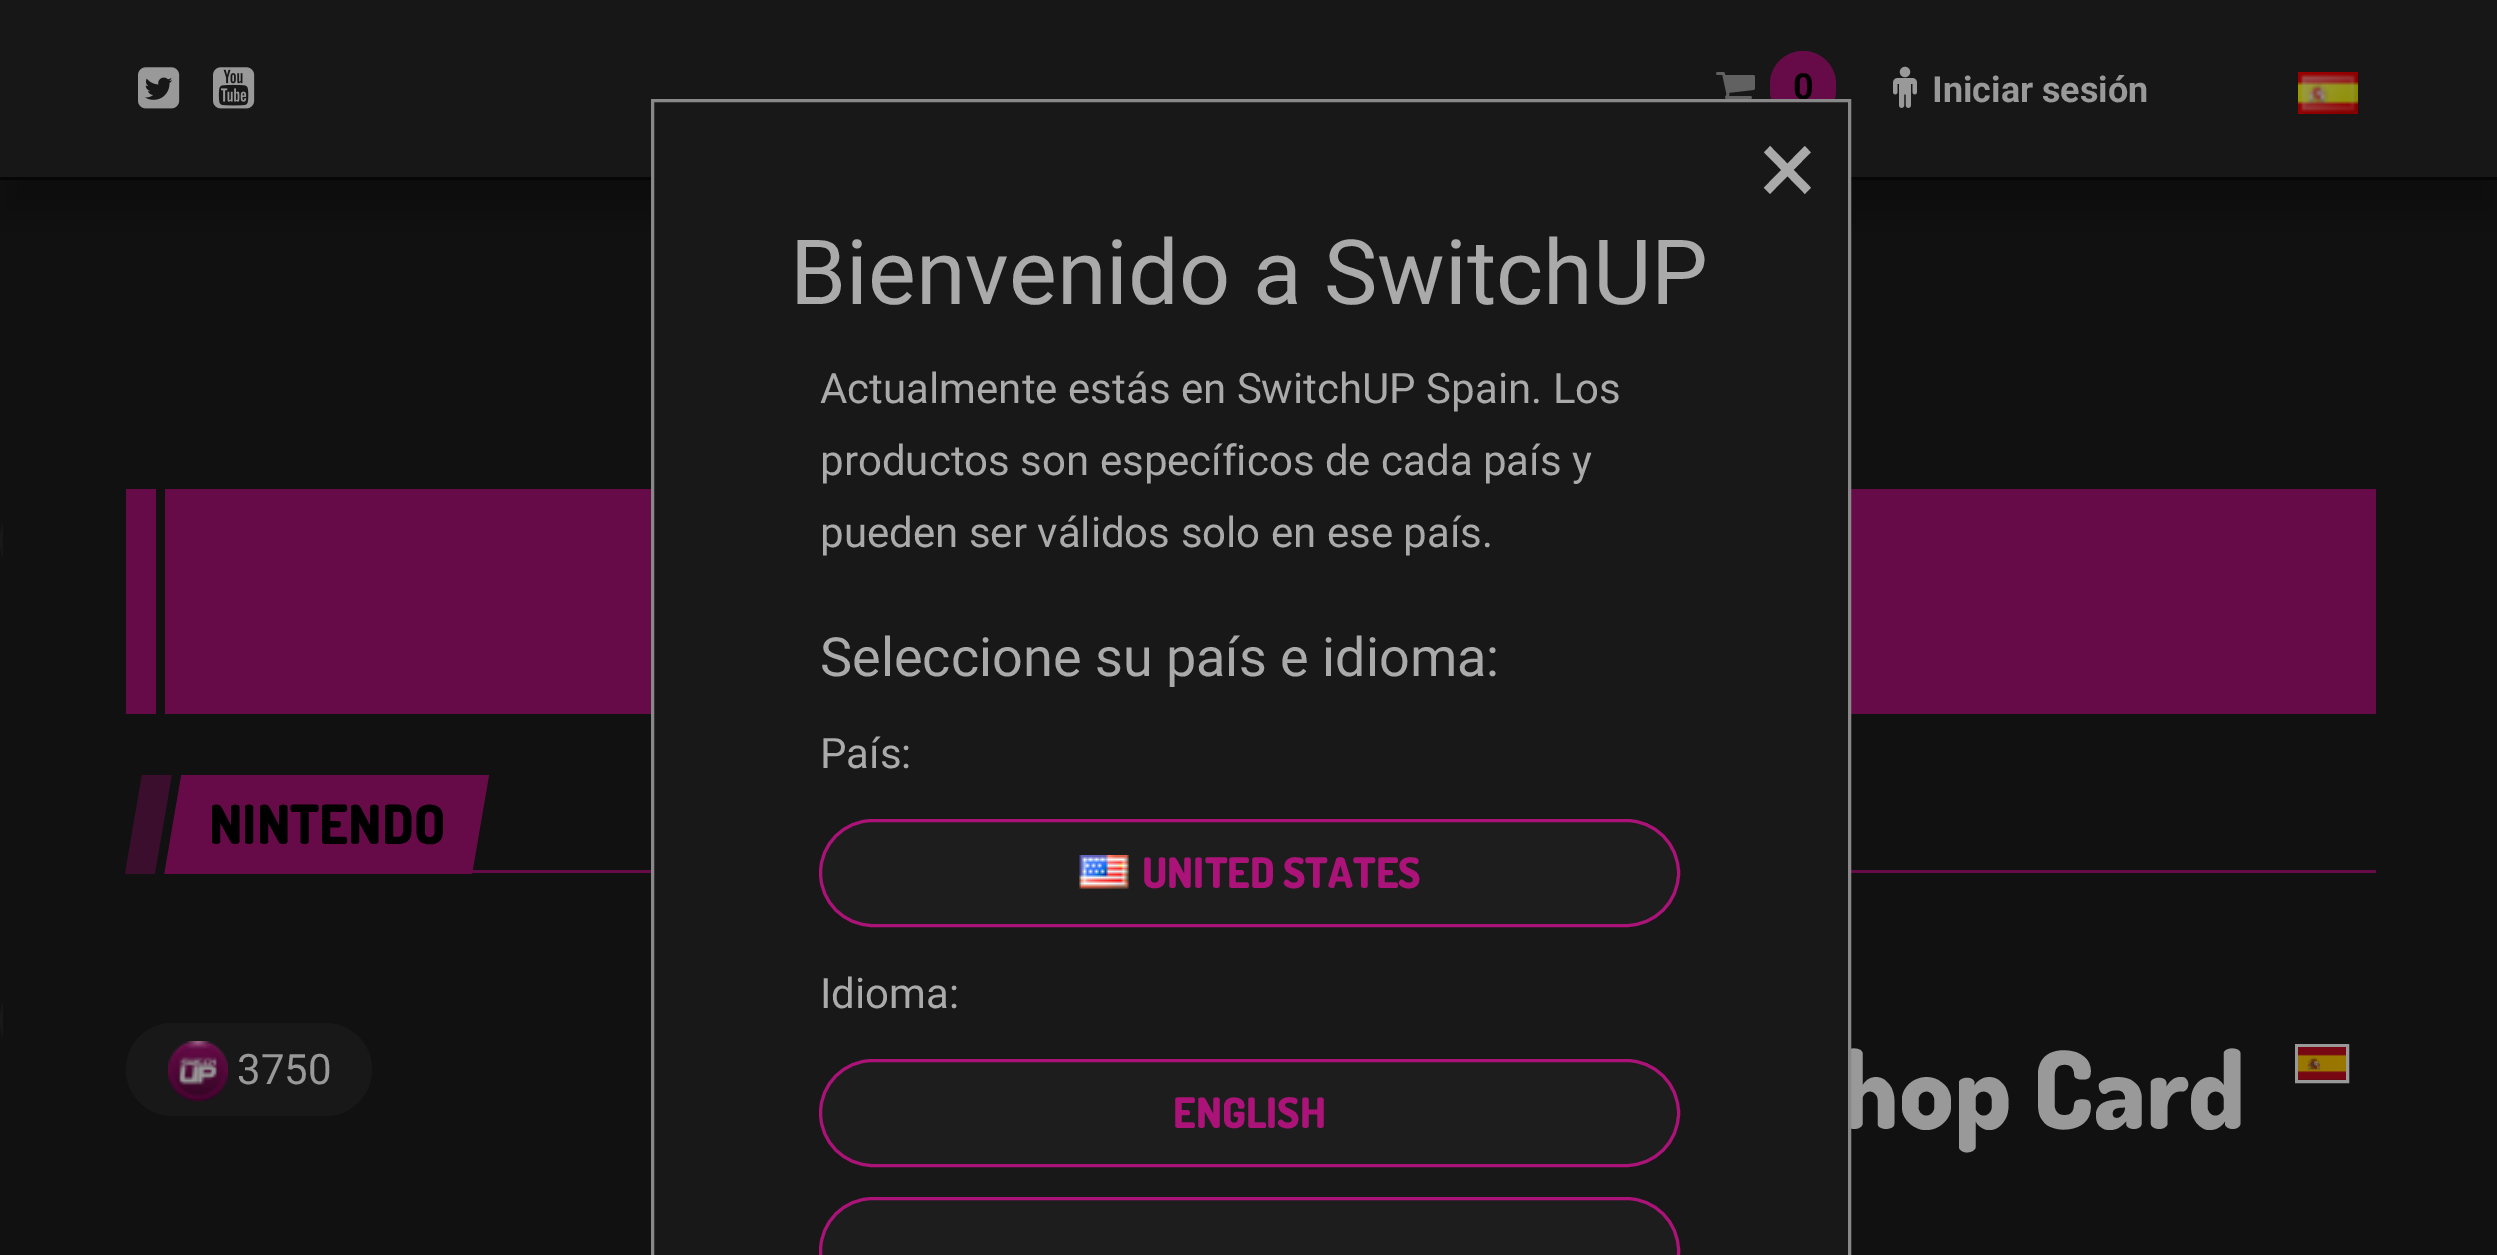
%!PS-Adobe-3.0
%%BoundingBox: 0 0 2497 1255
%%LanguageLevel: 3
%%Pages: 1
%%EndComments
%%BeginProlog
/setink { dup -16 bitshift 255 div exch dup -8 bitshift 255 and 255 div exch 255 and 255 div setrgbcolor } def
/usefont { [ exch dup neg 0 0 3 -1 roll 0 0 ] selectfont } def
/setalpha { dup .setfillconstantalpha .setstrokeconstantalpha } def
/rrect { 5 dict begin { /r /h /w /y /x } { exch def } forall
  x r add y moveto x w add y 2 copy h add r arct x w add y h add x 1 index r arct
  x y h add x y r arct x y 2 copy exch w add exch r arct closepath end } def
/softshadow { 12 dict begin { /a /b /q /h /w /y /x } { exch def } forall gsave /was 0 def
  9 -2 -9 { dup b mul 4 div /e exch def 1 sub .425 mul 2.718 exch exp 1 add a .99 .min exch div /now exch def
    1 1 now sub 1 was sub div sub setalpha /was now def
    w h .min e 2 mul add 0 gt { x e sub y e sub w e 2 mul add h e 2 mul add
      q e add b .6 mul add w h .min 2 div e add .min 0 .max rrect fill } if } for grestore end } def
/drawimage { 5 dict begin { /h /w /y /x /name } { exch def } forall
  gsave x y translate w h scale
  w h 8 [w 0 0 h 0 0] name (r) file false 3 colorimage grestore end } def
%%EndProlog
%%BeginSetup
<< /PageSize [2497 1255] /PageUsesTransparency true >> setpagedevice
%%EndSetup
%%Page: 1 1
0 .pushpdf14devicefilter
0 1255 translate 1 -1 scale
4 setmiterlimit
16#FFFFFF setink
0 0 2497 1255 rectfill
(img1.raw) 0 180 3 1075 drawimage
16#111111 setink
3 180 2494 1075 rectfill
16#000000 setink
0 36 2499 180 0 22.5 0.3 softshadow
16#171717 setink
0 0 2497 177 rectfill
16#060606 setink
0 177 2497 3 rectfill
(img2.raw) 138 67 42 42 drawimage
(img3.raw) 213 67 42 42 drawimage
(img4.raw) 1716 72 39 27 drawimage
16#670B48 setink
1770 51 66 72 33 rrect fill
/Roboto-Bold 36 usefont
16#000000 setink
1793 99 moveto (0) show
(img5.raw) 1893 66 24 42 drawimage
16#999999 setink
1932 102 moveto (Iniciar sesión) show
(img6.raw) 2298 72 60 42 drawimage
16#670B48 setink
126 489 2250 225 rectfill
472 870 1904 3 rectfill
/Dosis-ExtraBold 108 usefont
16#999999 setink
1841 1129 moveto (hop Card) show
16#181818 setink
652.5 100.5 moveto 1849.5 100.5 lineto 1849.5 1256.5 lineto 652.5 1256.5 lineto closepath gsave fill grestore
16#888888 setink
3 setlinewidth
stroke
/Roboto-Regular 108 usefont
16#AAAAAA setink
1759 205 moveto (×) show
/Roboto-Regular 90 usefont
790 304 moveto (Bienvenido a SwitchUP) show
/Roboto-Regular 42 usefont
[
    [(Actualmente estás en SwitchUP Spain. Los) 820 403]
    [(productos son específicos de cada país y) 820 475]
    [(pueden ser válidos solo en ese país.) 820 547]
] { aload pop moveto show } forall
/Roboto-Regular 54 usefont
820 676 moveto (Seleccione su país e idioma:) show
/Roboto-Regular 42 usefont
820 768 moveto (País:) show
16#1D1D1D setink
820.5 820.5 858 105 52.5 rrect gsave fill grestore
16#AB1378 setink
stroke
(img7.raw) 1079 855 50 34 drawimage
/Dosis-ExtraBold 42 usefont
1142 888 moveto (UNITED STATES) show
/Roboto-Regular 42 usefont
16#AAAAAA setink
820 1008 moveto (Idioma:) show
16#1D1D1D setink
820.5 1060.5 858 105 52.5 rrect gsave fill grestore
16#AB1378 setink
stroke
/Dosis-ExtraBold 42 usefont
1173 1128 moveto (ENGLISH) show
16#1D1D1D setink
820.5 1198.5 858 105 52.5 rrect gsave fill grestore
16#AB1378 setink
stroke
16#111111 setink
156 489 9 225 rectfill
16#670B48 setink
181 775 moveto 489 775 lineto 472 874 lineto 164 874 lineto closepath fill
0.5 setalpha
142 775 moveto 181 775 lineto 164 874 lineto 125 874 lineto closepath fill
1 setalpha
16#111111 setink
172 775 moveto 181 775 lineto 164 874 lineto 155 874 lineto closepath fill
/Dosis-ExtraBold 54 usefont
16#000000 setink
209 844 moveto (NINTENDO) show
16#181818 setink
126 1023 246 93 46.5 rrect fill
(img8.raw) 168 1041 60 60 drawimage
/Roboto-Regular 42 usefont
16#999999 setink
237 1084 moveto (3750) show
2296.5 1045.5 51 36 rectstroke
(img9.raw) 2298 1047 48 33 drawimage
.poppdf14devicefilter showpage
%%EOF
